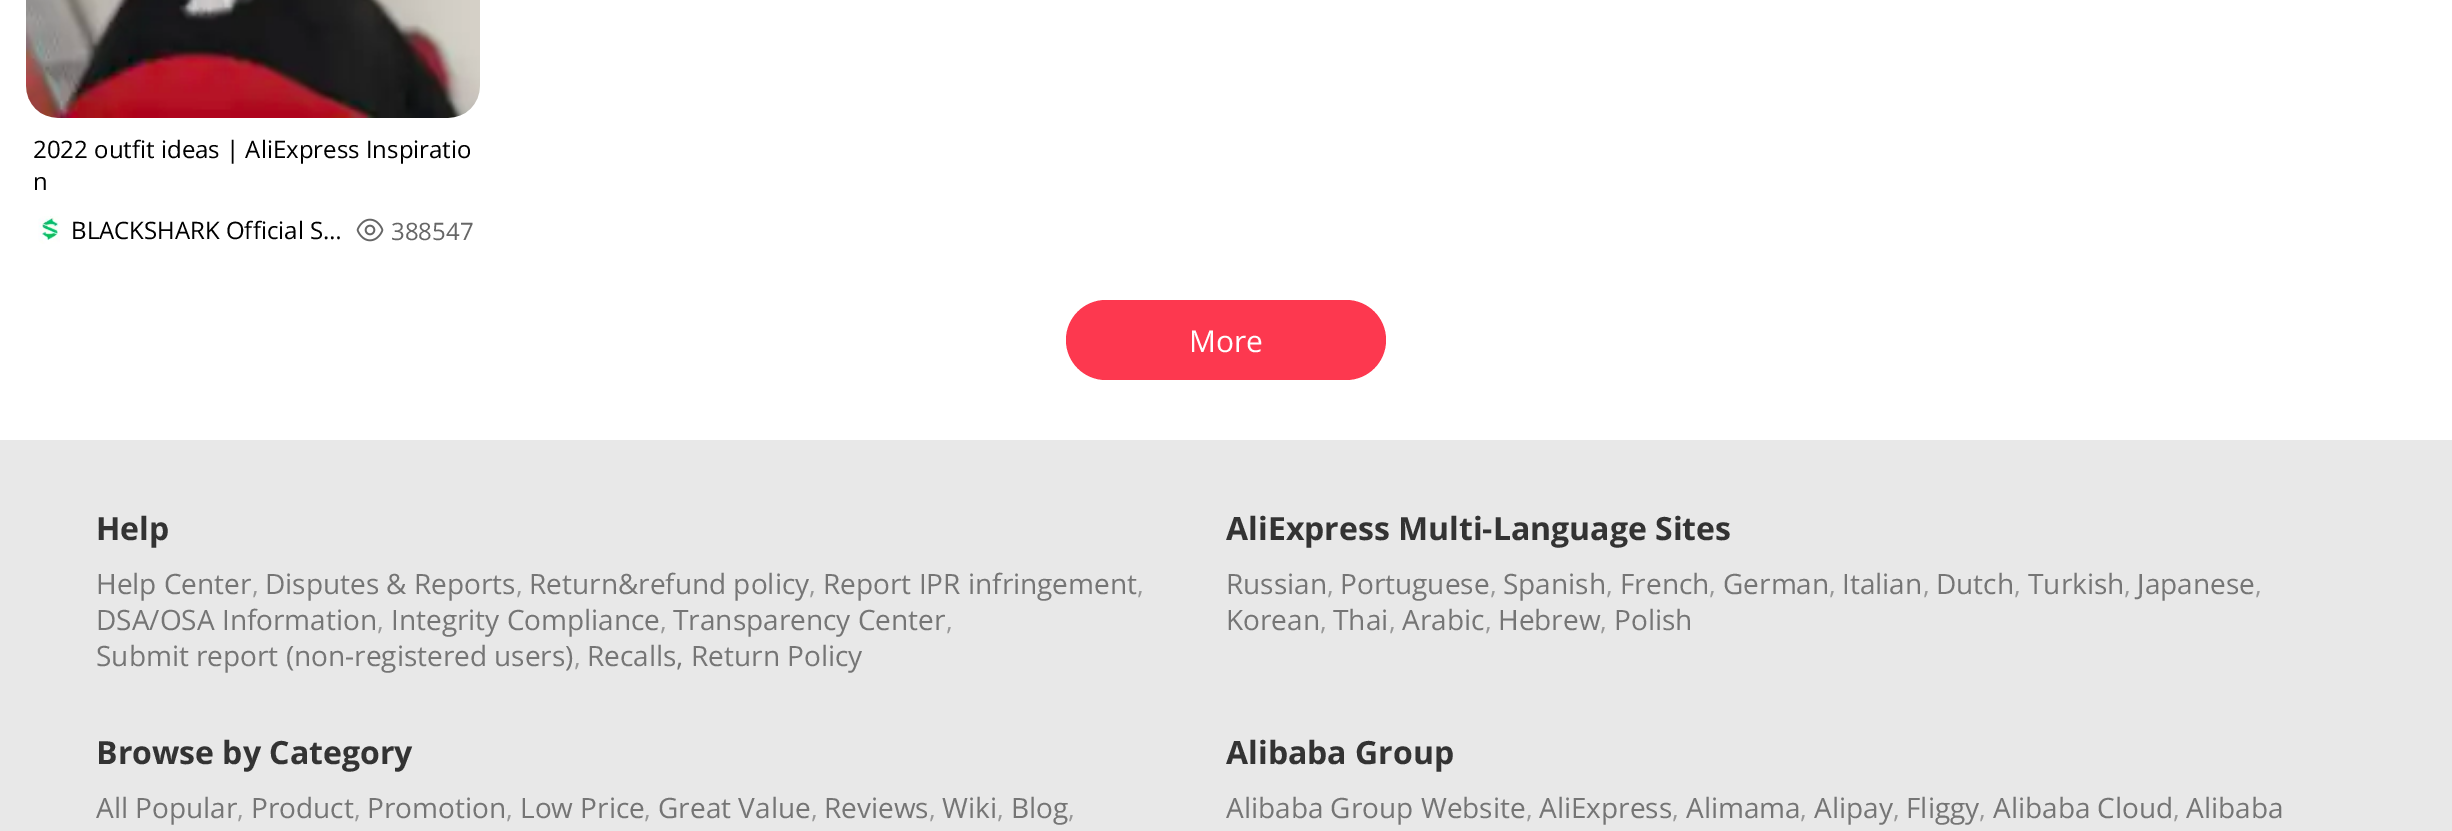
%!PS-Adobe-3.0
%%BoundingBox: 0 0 2452 831
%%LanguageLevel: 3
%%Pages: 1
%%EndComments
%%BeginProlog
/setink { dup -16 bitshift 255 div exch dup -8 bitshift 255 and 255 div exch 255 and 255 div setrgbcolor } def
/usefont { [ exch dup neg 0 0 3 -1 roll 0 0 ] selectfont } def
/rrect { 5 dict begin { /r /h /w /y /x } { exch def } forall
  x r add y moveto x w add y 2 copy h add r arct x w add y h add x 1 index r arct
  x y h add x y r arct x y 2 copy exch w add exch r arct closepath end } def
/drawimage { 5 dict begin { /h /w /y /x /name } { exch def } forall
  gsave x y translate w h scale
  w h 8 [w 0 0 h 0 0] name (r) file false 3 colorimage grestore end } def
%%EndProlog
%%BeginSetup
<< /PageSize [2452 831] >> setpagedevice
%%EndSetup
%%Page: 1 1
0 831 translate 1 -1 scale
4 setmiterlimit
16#FFFFFF setink
0 0 2452 831 rectfill
(img1.raw) 26 0 454 118 drawimage
/OpenSans-Regular 24 usefont
16#000000 setink
33 158 moveto (2022 outfit ideas | AliExpress Inspiratio) show
33 190 moveto (n) show
(img2.raw) 38 216 22 28 drawimage
71 239 moveto (BLACKSHARK Official S…) show
(img3.raw) 356 218 28 24 drawimage
16#666666 setink
391 240 moveto (388547) show
16#FD384F setink
1066 300 320 80 40 rrect fill
/OpenSans-Regular 30 usefont
16#FFFFFF setink
1189 352 moveto (More) show
16#E8E8E8 setink
0 440 2452 391 rectfill
/OpenSans-Bold 32 usefont
16#333333 setink
96 540 moveto (Help) show
/OpenSans-Regular 28 usefont
16#757575 setink
96 594 moveto (Help Center) show
/OpenSans-Regular 26 usefont
16#999999 setink
252 594 moveto (,) show
/OpenSans-Regular 28 usefont
16#757575 setink
265 594 moveto (Disputes & Reports) show
/OpenSans-Regular 26 usefont
16#999999 setink
516 594 moveto (,) show
/OpenSans-Regular 28 usefont
16#757575 setink
529 594 moveto (Return&refund policy) show
/OpenSans-Regular 26 usefont
16#999999 setink
809 594 moveto (,) show
/OpenSans-Regular 28 usefont
16#757575 setink
823 594 moveto (Report IPR infringement) show
/OpenSans-Regular 26 usefont
16#999999 setink
1137 594 moveto (,) show
/OpenSans-Regular 28 usefont
16#757575 setink
96 630 moveto (DSA/OSA Information) show
/OpenSans-Regular 26 usefont
16#999999 setink
377 630 moveto (,) show
/OpenSans-Regular 28 usefont
16#757575 setink
391 630 moveto (Integrity Compliance) show
/OpenSans-Regular 26 usefont
16#999999 setink
660 630 moveto (,) show
/OpenSans-Regular 28 usefont
16#757575 setink
673 630 moveto (Transparency Center) show
/OpenSans-Regular 26 usefont
16#999999 setink
946 630 moveto (,) show
/OpenSans-Regular 28 usefont
16#757575 setink
96 666 moveto (Submit report \(non-registered users\)) show
/OpenSans-Regular 26 usefont
16#999999 setink
574 666 moveto (,) show
/OpenSans-Regular 28 usefont
16#757575 setink
587 666 moveto (Recalls,) show
691 666 moveto (Return Policy) show
/OpenSans-Bold 32 usefont
16#333333 setink
1226 540 moveto (AliExpress Multi-Language Sites) show
/OpenSans-Regular 28 usefont
16#757575 setink
1226 594 moveto (Russian) show
/OpenSans-Regular 26 usefont
16#999999 setink
1327 594 moveto (,) show
/OpenSans-Regular 28 usefont
16#757575 setink
1340 594 moveto (Portuguese) show
/OpenSans-Regular 26 usefont
16#999999 setink
1490 594 moveto (,) show
/OpenSans-Regular 28 usefont
16#757575 setink
1503 594 moveto (Spanish) show
/OpenSans-Regular 26 usefont
16#999999 setink
1606 594 moveto (,) show
/OpenSans-Regular 28 usefont
16#757575 setink
1620 594 moveto (French) show
/OpenSans-Regular 26 usefont
16#999999 setink
1709 594 moveto (,) show
/OpenSans-Regular 28 usefont
16#757575 setink
1723 594 moveto (German) show
/OpenSans-Regular 26 usefont
16#999999 setink
1829 594 moveto (,) show
/OpenSans-Regular 28 usefont
16#757575 setink
1842 594 moveto (Italian) show
/OpenSans-Regular 26 usefont
16#999999 setink
1923 594 moveto (,) show
/OpenSans-Regular 28 usefont
16#757575 setink
1936 594 moveto (Dutch) show
/OpenSans-Regular 26 usefont
16#999999 setink
2014 594 moveto (,) show
/OpenSans-Regular 28 usefont
16#757575 setink
2028 594 moveto (Turkish) show
/OpenSans-Regular 26 usefont
16#999999 setink
2124 594 moveto (,) show
/OpenSans-Regular 28 usefont
16#757575 setink
2137 594 moveto (Japanese) show
/OpenSans-Regular 26 usefont
16#999999 setink
2255 594 moveto (,) show
/OpenSans-Regular 28 usefont
16#757575 setink
1226 630 moveto (Korean) show
/OpenSans-Regular 26 usefont
16#999999 setink
1320 630 moveto (,) show
/OpenSans-Regular 28 usefont
16#757575 setink
1333 630 moveto (Thai) show
/OpenSans-Regular 26 usefont
16#999999 setink
1389 630 moveto (,) show
/OpenSans-Regular 28 usefont
16#757575 setink
1402 630 moveto (Arabic) show
/OpenSans-Regular 26 usefont
16#999999 setink
1485 630 moveto (,) show
/OpenSans-Regular 28 usefont
16#757575 setink
1498 630 moveto (Hebrew) show
/OpenSans-Regular 26 usefont
16#999999 setink
1600 630 moveto (,) show
/OpenSans-Regular 28 usefont
16#757575 setink
1614 630 moveto (Polish) show
/OpenSans-Bold 32 usefont
16#333333 setink
96 764 moveto (Browse by Category) show
/OpenSans-Regular 28 usefont
16#757575 setink
96 818 moveto (All Popular) show
/OpenSans-Regular 26 usefont
16#999999 setink
237 818 moveto (,) show
/OpenSans-Regular 28 usefont
16#757575 setink
251 818 moveto (Product) show
/OpenSans-Regular 26 usefont
16#999999 setink
354 818 moveto (,) show
/OpenSans-Regular 28 usefont
16#757575 setink
367 818 moveto (Promotion) show
/OpenSans-Regular 26 usefont
16#999999 setink
506 818 moveto (,) show
/OpenSans-Regular 28 usefont
16#757575 setink
520 818 moveto (Low Price) show
/OpenSans-Regular 26 usefont
16#999999 setink
644 818 moveto (,) show
/OpenSans-Regular 28 usefont
16#757575 setink
658 818 moveto (Great Value) show
/OpenSans-Regular 26 usefont
16#999999 setink
811 818 moveto (,) show
/OpenSans-Regular 28 usefont
16#757575 setink
824 818 moveto (Reviews) show
/OpenSans-Regular 26 usefont
16#999999 setink
929 818 moveto (,) show
/OpenSans-Regular 28 usefont
16#757575 setink
942 818 moveto (Wiki) show
/OpenSans-Regular 26 usefont
16#999999 setink
997 818 moveto (,) show
/OpenSans-Regular 28 usefont
16#757575 setink
1011 818 moveto (Blog) show
/OpenSans-Regular 26 usefont
16#999999 setink
1068 818 moveto (,) show
/OpenSans-Bold 32 usefont
16#333333 setink
1226 764 moveto (Alibaba Group) show
/OpenSans-Regular 28 usefont
16#757575 setink
1226 818 moveto (Alibaba Group Website) show
/OpenSans-Regular 26 usefont
16#999999 setink
1526 818 moveto (,) show
/OpenSans-Regular 28 usefont
16#757575 setink
1539 818 moveto (AliExpress) show
/OpenSans-Regular 26 usefont
16#999999 setink
1672 818 moveto (,) show
/OpenSans-Regular 28 usefont
16#757575 setink
1686 818 moveto (Alimama) show
/OpenSans-Regular 26 usefont
16#999999 setink
1800 818 moveto (,) show
/OpenSans-Regular 28 usefont
16#757575 setink
1814 818 moveto (Alipay) show
/OpenSans-Regular 26 usefont
16#999999 setink
1893 818 moveto (,) show
/OpenSans-Regular 28 usefont
16#757575 setink
1906 818 moveto (Fliggy) show
/OpenSans-Regular 26 usefont
16#999999 setink
1979 818 moveto (,) show
/OpenSans-Regular 28 usefont
16#757575 setink
1993 818 moveto (Alibaba Cloud) show
/OpenSans-Regular 26 usefont
16#999999 setink
2173 818 moveto (,) show
/OpenSans-Regular 28 usefont
16#757575 setink
2186 818 moveto (Alibaba) show
showpage
%%EOF
